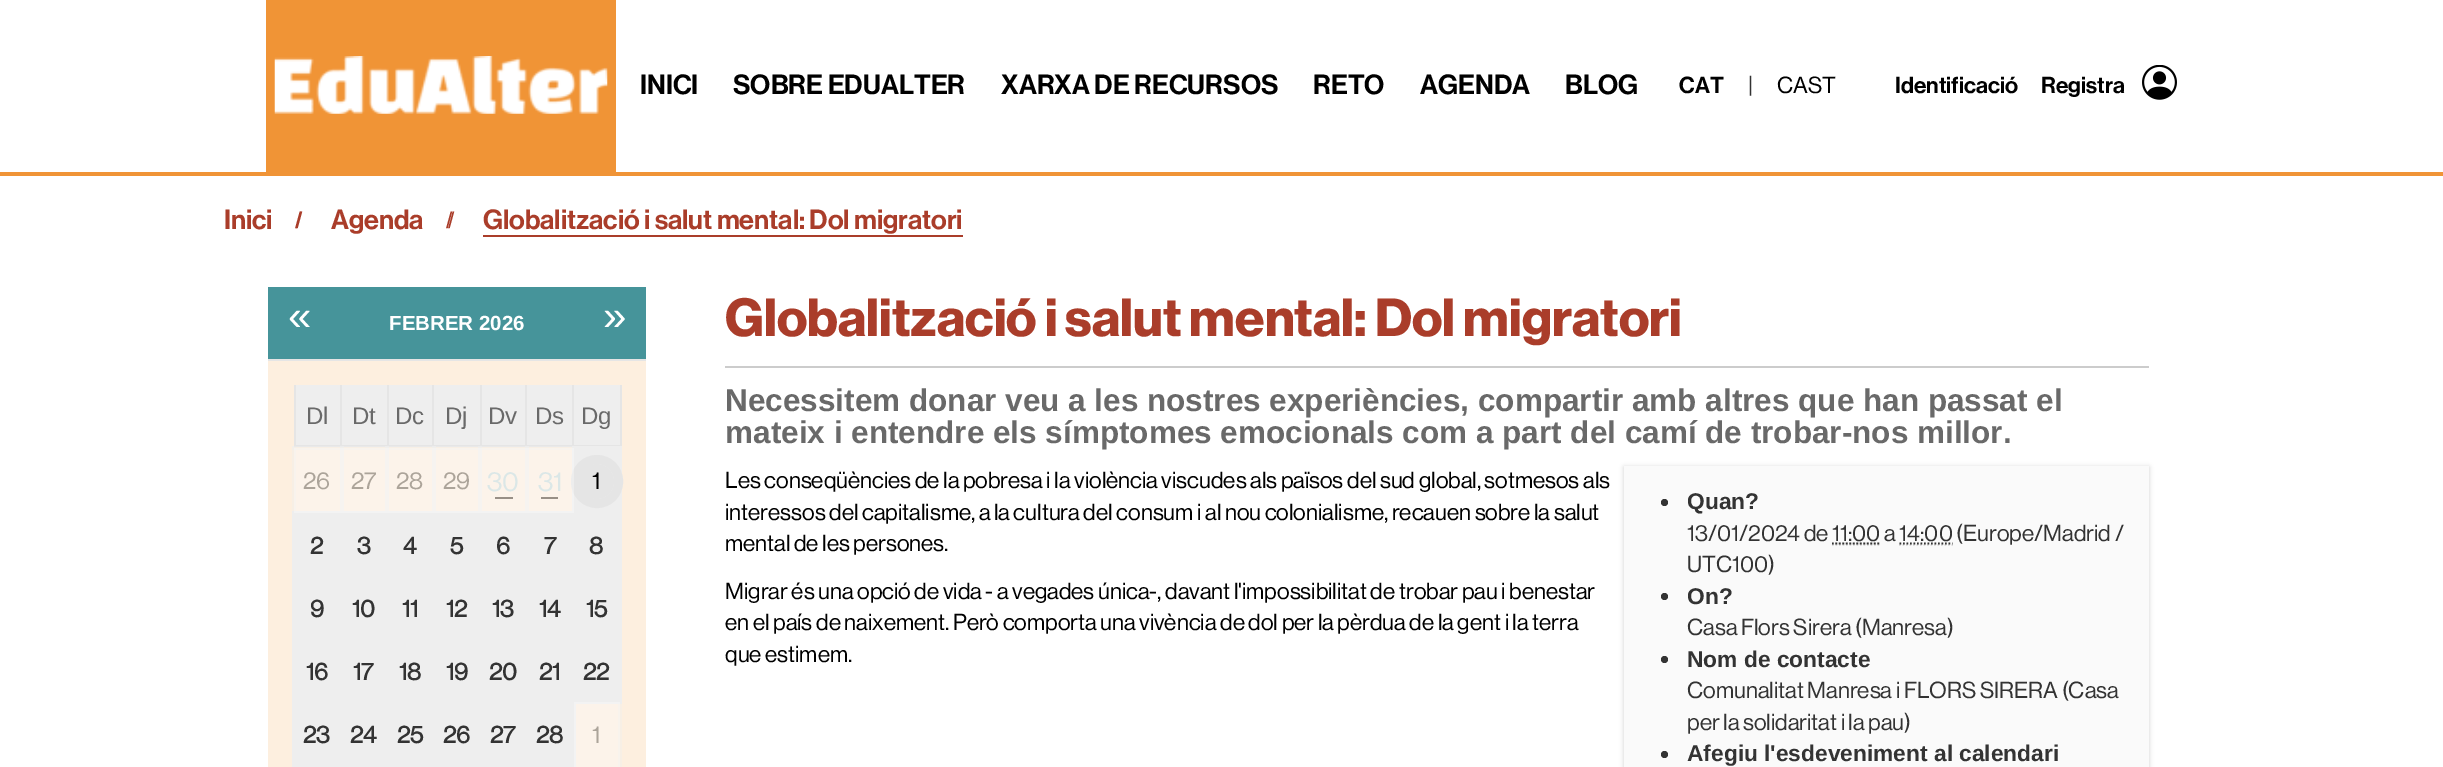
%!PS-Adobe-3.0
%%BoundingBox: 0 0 2443 767
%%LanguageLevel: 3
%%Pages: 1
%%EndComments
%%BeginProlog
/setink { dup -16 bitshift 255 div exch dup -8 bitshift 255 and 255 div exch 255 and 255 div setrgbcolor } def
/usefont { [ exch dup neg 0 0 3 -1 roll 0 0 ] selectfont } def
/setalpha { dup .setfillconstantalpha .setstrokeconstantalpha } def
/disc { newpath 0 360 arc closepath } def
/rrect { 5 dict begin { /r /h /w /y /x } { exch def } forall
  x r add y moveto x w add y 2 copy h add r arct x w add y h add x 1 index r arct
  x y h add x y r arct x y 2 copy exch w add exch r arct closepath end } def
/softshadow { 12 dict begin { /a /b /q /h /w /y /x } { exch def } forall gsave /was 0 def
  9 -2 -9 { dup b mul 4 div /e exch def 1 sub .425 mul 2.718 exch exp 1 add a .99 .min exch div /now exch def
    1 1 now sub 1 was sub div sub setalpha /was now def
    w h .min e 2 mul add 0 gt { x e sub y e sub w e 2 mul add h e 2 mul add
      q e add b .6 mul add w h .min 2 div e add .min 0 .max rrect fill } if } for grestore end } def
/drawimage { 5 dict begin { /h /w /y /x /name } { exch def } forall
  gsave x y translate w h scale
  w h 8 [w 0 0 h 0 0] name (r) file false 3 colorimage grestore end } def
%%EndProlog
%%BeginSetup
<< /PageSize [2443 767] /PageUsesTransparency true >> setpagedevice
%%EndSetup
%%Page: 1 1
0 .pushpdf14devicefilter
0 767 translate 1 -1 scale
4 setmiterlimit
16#FFFFFF setink
0 0 2443 767 rectfill
16#F09436 setink
0 172 2443 4 rectfill
266 0 350 172 rectfill
(img1.raw) 274 56 334 58 drawimage
/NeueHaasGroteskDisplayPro-SemiBold 27.25 usefont
16#000000 setink
[
    [(INICI) 640 94]
    [(SOBRE EDUALTER) 733 94]
    [(XARXA DE RECURSOS) 1001 94]
    [(RETO) 1313 94]
    [(AGENDA) 1420 94]
    [(BLOG) 1565 94]
] { aload pop moveto show } forall
/NeueHaasGroteskDisplayPro-SemiBold 22.75 usefont
1679 93 moveto (CAT) show
/NeueHaasGroteskDisplayPro-Regular 22.75 usefont
16#333333 setink
1748 93 moveto (|) show
16#000000 setink
1777 93 moveto (CAST) show
/NeueHaasGroteskDisplayPro-SemiBold 22.75 usefont
1895 93 moveto (Identificació) show
2041 93 moveto (Registra) show
(img2.raw) 2142 65 35 35 drawimage
/NeueHaasGroteskDisplayPro-SemiBold 27.25 usefont
16#AA3D2A setink
224 229 moveto (Inici) show
/LiberationSans-Regular 22.75 usefont
296 228 moveto (/) show
295 228 moveto (/) show
/NeueHaasGroteskDisplayPro-SemiBold 27.25 usefont
331 229 moveto (Agenda) show
/LiberationSans-Regular 22.75 usefont
448 228 moveto (/) show
446 228 moveto (/) show
/NeueHaasGroteskDisplayPro-SemiBold 27.25 usefont
483 229 moveto (Globalització i salut mental: Dol migratori) show
483 235 480 2 rectfill
16#46949A setink
268 287 378 72 rectfill
/LiberationSans-Regular 42 usefont
16#FFFFFF setink
288 330 moveto («) show
/LiberationSans-Bold 20.5 usefont
389 330 moveto (FEBRER 2026) show
/LiberationSans-Regular 42 usefont
603 330 moveto (») show
[
    [268 361 378 406 16#FDEFDF]
    [576 704 42 63 16#FCF3EA]
    [482 450 43 61 16#FCF3EA]
    [436 450 42 61 16#FCF3EA]
    [389 450 43 61 16#FCF3EA]
    [344 450 41 61 16#FCF3EA]
    [296 450 44 61 16#FCF3EA]
    [292 446 2 69 16#F7EFE5]
    [294 448 2 65 16#F8F3ED]
    [292 447 237 1 16#F7EFE5]
    [294 448 47 2 16#F8F3ED]
    [292 446 4 4 16#F3EFE9]
    [294 448 2 2 16#F6F3F0]
    [340 448 4 65 16#F6F3F0]
    [341 448 46 2 16#F8F3ED]
    [340 447 4 1 16#F1EFEB]
    [341 448 3 2 16#F5F3F1]
    [340 446 3 4 16#F0EFEC]
    [340 448 3 2 16#F4F3F2]
    [385 448 4 65 16#F6F3F0]
    [387 448 47 2 16#F8F3ED]
    [385 447 4 1 16#F0EFEC]
    [387 448 2 2 16#F4F3F2]
    [432 448 4 65 16#F6F3F0]
    [434 448 46 2 16#F8F3ED]
    [432 447 4 1 16#F0EFEC]
    [434 448 2 2 16#F4F3F2]
    [478 448 4 65 16#F6F3F0]
    [480 448 47 2 16#F8F3ED]
    [478 447 4 1 16#F1EFEB]
    [480 448 2 2 16#F5F3F1]
    [478 446 3 4 16#F0EFEC]
    [478 448 3 2 16#F4F3F2]
    [527 446 2 69 16#F3EFE9]
    [525 448 2 65 16#F6F3F0]
    [525 447 51 3 16#F7EFE5]
    [525 447 4 3 16#F0EFEC]
    [525 448 2 2 16#F4F3F2]
    [620 700 2 67 16#F7EFE5]
    [618 702 2 65 16#F8F3ED]
    [268 359 378 2 16#E5E5E5]
    [294 445 327 1 16#E5E5E5]
    [294 446 282 1 16#E9E9E9]
    [340 446 4 1 16#ECECEC]
    [385 446 4 1 16#EDEDED]
    [432 446 4 1 16#EDEDED]
    [478 446 4 1 16#ECECEC]
    [525 446 4 1 16#EDEDED]
    [296 385 44 60 16#EEEEEE]
    [294 385 2 61 16#E5E5E5]
] { aload pop setink rectfill } forall
/LiberationSans-Regular 24 usefont
16#696969 setink
306 424 moveto (Dl) show
16#EEEEEE setink
342 385 45 60 rectfill
16#E5E5E5 setink
340 385 2 61 rectfill
16#696969 setink
352 424 moveto (Dt) show
16#EEEEEE setink
389 385 43 60 rectfill
16#E5E5E5 setink
387 385 2 61 rectfill
16#696969 setink
395 424 moveto (Dc) show
16#EEEEEE setink
434 385 46 60 rectfill
16#E5E5E5 setink
432 385 2 61 rectfill
16#696969 setink
445 424 moveto (Dj) show
16#EEEEEE setink
482 385 43 60 rectfill
16#E5E5E5 setink
480 385 2 61 rectfill
16#696969 setink
488 424 moveto (Dv) show
16#EEEEEE setink
527 385 45 60 rectfill
16#E5E5E5 setink
525 385 2 61 rectfill
16#696969 setink
535 424 moveto (Ds) show
[
    [574 385 46 60 16#EEEEEE]
    [620 385 2 61 16#E5E5E5]
    [572 385 2 61 16#E5E5E5]
] { aload pop setink rectfill } forall
16#696969 setink
581 424 moveto (Dg) show
/NeueHaasGroteskDisplayPro-Regular 24 usefont
16#ACA49A setink
[
    [(26) 303 489]
    [(27) 351 489]
    [(28) 396 489]
    [(29) 443 489]
] { aload pop moveto show } forall
16#988F86 setink
495 497 18 2 rectfill
/NeueHaasGroteskDisplayPro-Regular 27 usefont
16#DBE7E7 setink
487 491 moveto (30) show
[
    [572 446 49 4 16#EEEEEE]
    [525 511 96 4 16#EEEEEE]
    [572 446 4 69 16#EEEEEE]
    [576 450 42 61 16#EEEEEE]
    [341 515 233 61 16#EEEEEE]
    [341 576 233 63 16#EEEEEE]
    [572 574 49 4 16#EEEEEE]
    [527 639 47 61 16#EEEEEE]
    [572 637 49 4 16#EEEEEE]
    [618 637 4 67 16#EEEEEE]
    [618 574 4 67 16#EEEEEE]
    [618 511 4 67 16#EEEEEE]
    [618 446 4 69 16#EEEEEE]
] { aload pop setink rectfill } forall
16#E5E5E5 setink
9 setlinewidth
575.5 459.5 43 44 21.5 rrect stroke
[
    [294 511 233 2 16#F3F3F3]
    [525 511 4 2 16#EEEEEE]
] { aload pop setink rectfill } forall
0.4 setalpha
[
    [527 448 47 65 16#FAFAFA]
] { aload pop setink rectfill } forall
1 setalpha
[
    [541 497 17 2 16#988F86]
] { aload pop setink rectfill } forall
16#DBE7E7 setink
538 491 moveto (31) show
16#E5E5E5 setink
596.5 481.5 17.5 disc fill
/NeueHaasGroteskDisplayPro-Regular 24 usefont
16#000000 setink
592 489 moveto (1) show
[
    [296 515 45 59 16#EEEEEE]
    [292 513 237 2 16#EEEEEE]
    [340 511 3 4 16#EEEEEE]
    [340 511 3 2 16#F3F3F3]
    [292 574 51 4 16#EEEEEE]
    [341 639 186 63 16#EEEEEE]
    [292 637 51 4 16#EEEEEE]
    [341 702 186 65 16#EEEEEE]
    [292 700 51 4 16#EEEEEE]
    [292 700 4 67 16#EEEEEE]
    [292 637 4 67 16#EEEEEE]
    [292 574 4 67 16#EEEEEE]
    [292 511 4 67 16#EEEEEE]
    [294 511 2 2 16#F3F3F3]
] { aload pop setink rectfill } forall
/NeueHaasGroteskDisplayPro-Bold 24 usefont
16#333333 setink
[
    [(2) 310 554]
    [(3) 357 554]
    [(4) 403 554]
] { aload pop moveto show } forall
16#EEEEEE setink
478 511 3 4 rectfill
16#F3F3F3 setink
478 511 3 2 rectfill
16#333333 setink
450 554 moveto (5) show
16#F3F3F3 setink
525 511 2 2 rectfill
16#333333 setink
496 554 moveto (6) show
544 554 moveto (7) show
16#EEEEEE setink
574 515 44 59 rectfill
16#333333 setink
589 554 moveto (8) show
16#EEEEEE setink
296 578 45 59 rectfill
16#333333 setink
[
    [(9) 310 617]
    [(10) 352 617]
    [(11) 402 617]
    [(12) 446 617]
    [(13) 492 617]
    [(14) 539 617]
] { aload pop moveto show } forall
16#EEEEEE setink
574 578 44 59 rectfill
16#333333 setink
586 617 moveto (15) show
16#EEEEEE setink
296 641 45 59 rectfill
16#333333 setink
[
    [(16) 306 680]
    [(17) 353 680]
    [(18) 399 680]
    [(19) 446 680]
    [(20) 489 680]
    [(21) 539 680]
] { aload pop moveto show } forall
[
    [574 641 44 59 16#EEEEEE]
    [525 700 51 4 16#EEEEEE]
    [572 700 2 67 16#EEEEEE]
    [574 702 2 65 16#F3F3F3]
    [572 700 49 4 16#EEEEEE]
    [574 702 46 2 16#F3F3F3]
] { aload pop setink rectfill } forall
16#333333 setink
583 680 moveto (22) show
16#EEEEEE setink
296 704 45 63 rectfill
16#333333 setink
[
    [(23) 303 743]
    [(24) 350 743]
    [(25) 397 743]
    [(26) 443 743]
    [(27) 490 743]
] { aload pop moveto show } forall
16#EEEEEE setink
527 704 45 63 rectfill
16#333333 setink
536 743 moveto (28) show
/NeueHaasGroteskDisplayPro-Regular 24 usefont
16#ACA49A setink
592 743 moveto (1) show
16#CCCCCC setink
725 366 1424 2 rectfill
/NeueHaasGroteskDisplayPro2-Bold 52.5 usefont
16#AA3D2A setink
725 336 moveto (Globalització i salut mental: Dol migratori) show
/LiberationSans-Bold 31.5 usefont
16#696969 setink
725 411 moveto (Necessitem donar veu a les nostres experiències, compartir amb altres que han passat el) show
725 443 moveto (mateix i entendre els símptomes emocionals com a part del camí de trobar-nos millor.) show
/NeueHaasGroteskDisplayPro-Regular 22.75 usefont
16#000000 setink
[
    [(Les conseqüències de la pobresa i la violència viscudes als països del sud global, sotmesos als) 725 488]
    [(interessos del capitalisme, a la cultura del consum i al nou colonialisme, recauen sobre la salut) 725 520]
    [(mental de les persones.) 725 551]
    [(Migrar és una opció de vida - a vegades única-, davant l'impossibilitat de trobar pau i benestar) 725 599]
    [(en el país de naixement. Però comporta una vivència de dol per la pèrdua de la gent i la terra) 725 630]
    [(que estimem.) 725 662]
] { aload pop moveto show } forall
1624 467 525 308 0 2.5 0.17 softshadow
16#FAFAFA setink
1624 466 525 301 rectfill
16#333333 setink
1664.5 502.5 3.5 disc fill
/LiberationSans-Bold 22.75 usefont
1687 509 moveto (Quan?) show
/NeueHaasGroteskDisplayPro-Regular 22.75 usefont
1687 541 moveto (13/01/2024 de 11:00 a 14:00 \(Europe/Madrid /) show
16#DDDDDD setink
1.8 setlinewidth
[1.75 1.75] 0 setdash
1832 545 moveto 1881 545 lineto stroke
16#333333 setink
1832 543.5 moveto 1880.5 543.5 lineto stroke
16#DDDDDD setink
1899 545 moveto 1953 545 lineto stroke
16#333333 setink
1899.5 543.5 moveto 1952.5 543.5 lineto stroke
1687 572 moveto (UTC100\)) show
1664.5 596.5 3.5 disc fill
/LiberationSans-Bold 22.75 usefont
1687 604 moveto (On?) show
/NeueHaasGroteskDisplayPro-Regular 22.75 usefont
1687 635 moveto (Casa Flors Sirera \(Manresa\)) show
1664.5 659.5 3.5 disc fill
/LiberationSans-Bold 22.75 usefont
1687 667 moveto (Nom de contacte) show
/NeueHaasGroteskDisplayPro-Regular 22.75 usefont
1687 698 moveto (Comunalitat Manresa i FLORS SIRERA \(Casa) show
1687 730 moveto (per la solidaritat i la pau\)) show
1664.5 754.5 3.5 disc fill
/LiberationSans-Bold 22.75 usefont
1687 761 moveto (Afegiu l'esdeveniment al calendari) show
.poppdf14devicefilter showpage
%%EOF
